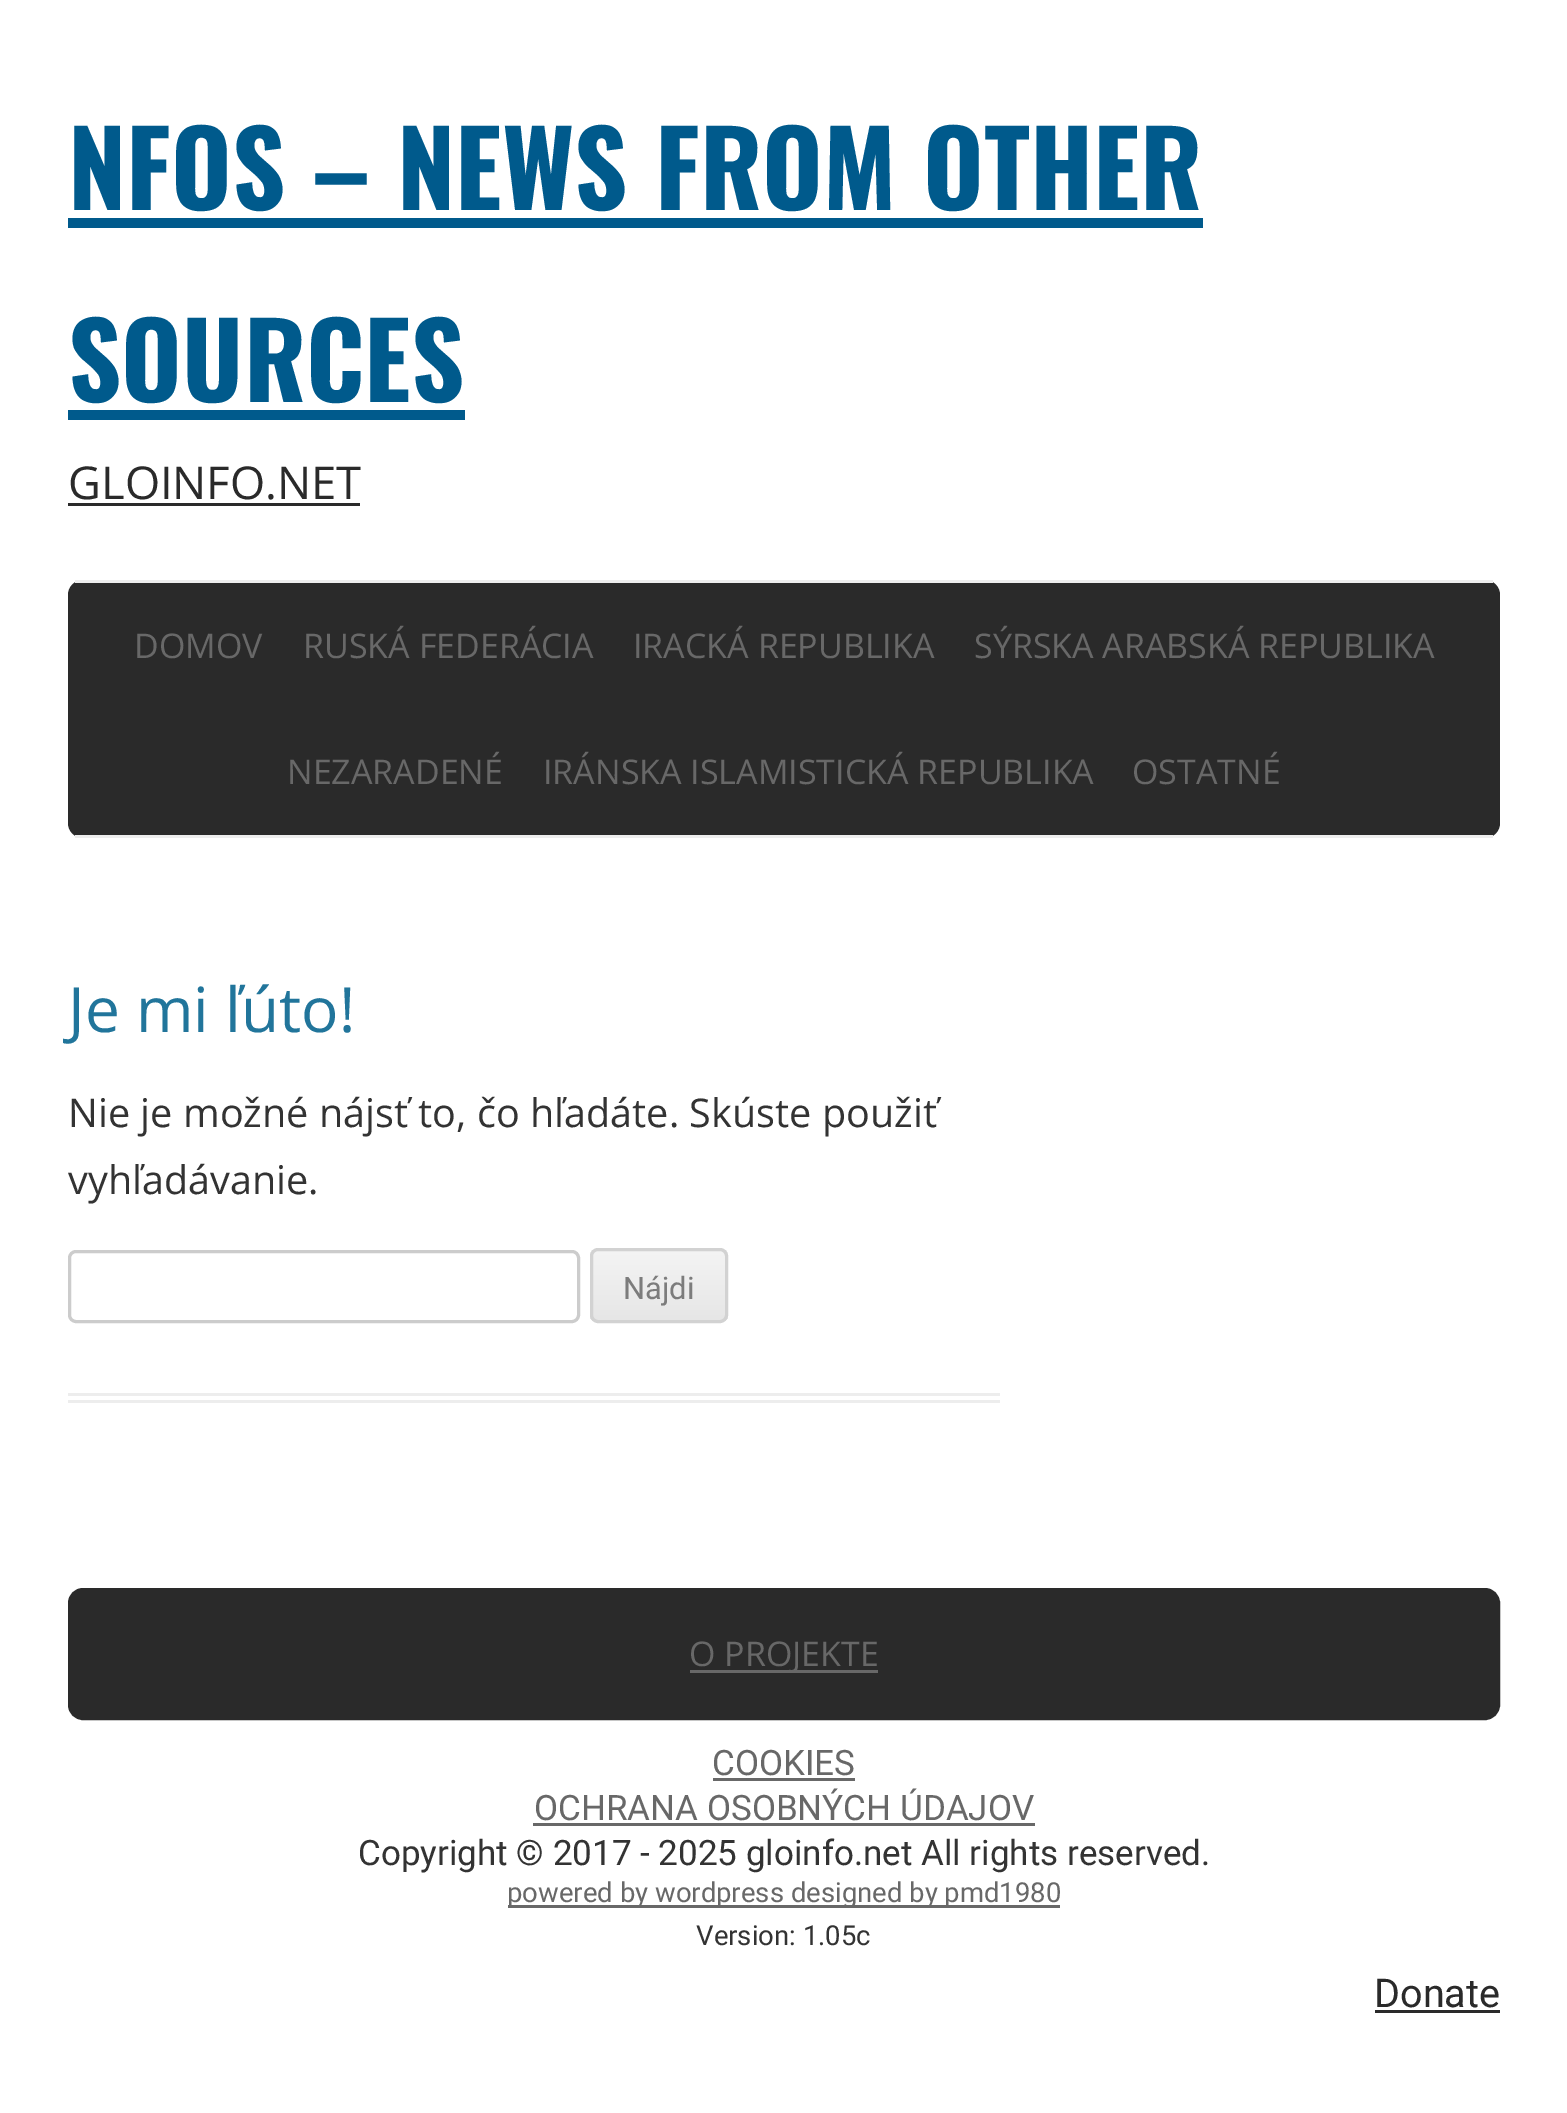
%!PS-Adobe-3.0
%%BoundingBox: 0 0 1567 2113
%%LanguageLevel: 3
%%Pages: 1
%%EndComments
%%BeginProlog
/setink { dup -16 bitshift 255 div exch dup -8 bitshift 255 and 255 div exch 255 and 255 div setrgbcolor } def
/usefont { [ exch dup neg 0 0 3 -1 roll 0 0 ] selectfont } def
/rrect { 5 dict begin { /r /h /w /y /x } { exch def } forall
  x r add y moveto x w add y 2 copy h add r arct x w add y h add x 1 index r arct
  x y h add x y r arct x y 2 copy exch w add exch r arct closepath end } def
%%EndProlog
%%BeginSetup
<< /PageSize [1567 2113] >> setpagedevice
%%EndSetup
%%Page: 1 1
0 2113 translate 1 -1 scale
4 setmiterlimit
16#FFFFFF setink
0 0 1567 2113 rectfill
/Oswald-Bold 104 usefont
16#005A8C setink
68 210 moveto (NFOS – NEWS FROM OTHER) show
68 218 1135 10 rectfill
68 402 moveto (SOURCES) show
68 410 397 10 rectfill
/OpenSans-Regular 45.25 usefont
16#2A2A2A setink
68 499 moveto (GLOINFO.NET) show
68 503 292 3 rectfill
68 580 1432 258 15 rrect fill
16#EDEDED setink
75 580 1418 3 rectfill
75 835 1418 3 rectfill
/OpenSans-Regular 34 usefont
16#686868 setink
[
    [(DOMOV) 134 658]
    [(RUSKÁ FEDERÁCIA) 303 658]
    [(IRACKÁ REPUBLIKA) 633 658]
    [(SÝRSKA ARABSKÁ REPUBLIKA) 974 658]
    [(NEZARADENÉ) 287 784]
    [(IRÁNSKA ISLAMISTICKÁ REPUBLIKA) 543 784]
    [(OSTATNÉ) 1132 784]
] { aload pop moveto show } forall
16#EDEDED setink
68 1393 932 3 rectfill
68 1400 932 3 rectfill
/OpenSans-Regular 62.25 usefont
16#21759B setink
68 1032 moveto (Je mi ľúto!) show
/OpenSans-Regular 39.6 usefont
16#333333 setink
68 1127 moveto (Nie je možné nájsť to, čo hľadáte. Skúste použiť) show
68 1194 moveto (vyhľadávanie.) show
16#CCCCCC setink
3 setlinewidth
69.5 1251.5 509 70 6.5 rrect stroke
gsave
590 1248 138 75 8 rrect clip newpath
gsave 590 1250 moveto 728 1250 lineto 728 1320 lineto 590 1320 lineto closepath clip newpath
<< /ShadingType 2 /ColorSpace /DeviceRGB /Coords [659 1250 659 1320] /Extend [true true] /Function << /FunctionType 2 /Domain [0 1] /C0 [0.957 0.957 0.957] /C1 [0.902 0.902 0.902] /N 1 >> >> shfill grestore
grestore
16#D2D2D2 setink
591.5 1249.5 135 72 6.5 rrect stroke
/Roboto-Regular 31 usefont
16#7C7C7C setink
623 1299 moveto (Nájdi) show
16#2A2A2A setink
69.5 1589.5 1429 129 13.5 rrect gsave fill grestore
stroke
16#686868 setink
690 1670 188 3 rectfill
/OpenSans-Regular 34 usefont
689 1666 moveto (O PROJEKTE) show
/Roboto-Regular 35 usefont
712 1775 moveto (COOKIES) show
713 1778 142 3 rectfill
534 1820 moveto (OCHRANA OSOBNÝCH ÚDAJOV) show
533 1823 502 3 rectfill
16#333333 setink
358 1865 moveto (Copyright © 2017 - 2025 gloinfo.net All rights reserved.) show
16#686868 setink
508 1905 552 3 rectfill
/Roboto-Regular 27.5 usefont
507 1902 moveto (powered by wordpress designed by pmd1980) show
16#333333 setink
696 1945 moveto (Version: 1.05c) show
/Roboto-Regular 39.6 usefont
16#2A2A2A setink
1374 2007 moveto (Donate) show
1375 2010 125 3 rectfill
showpage
%%EOF
